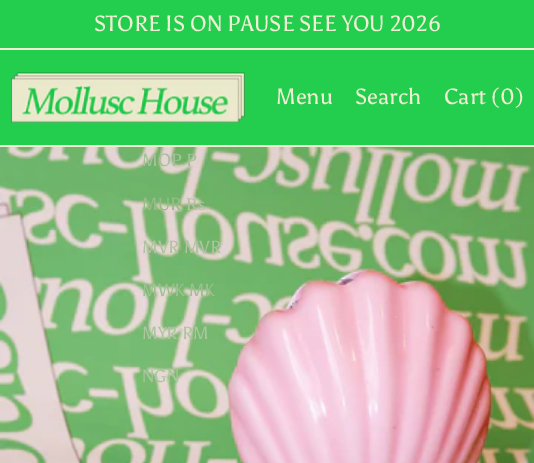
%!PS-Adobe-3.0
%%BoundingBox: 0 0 534 463
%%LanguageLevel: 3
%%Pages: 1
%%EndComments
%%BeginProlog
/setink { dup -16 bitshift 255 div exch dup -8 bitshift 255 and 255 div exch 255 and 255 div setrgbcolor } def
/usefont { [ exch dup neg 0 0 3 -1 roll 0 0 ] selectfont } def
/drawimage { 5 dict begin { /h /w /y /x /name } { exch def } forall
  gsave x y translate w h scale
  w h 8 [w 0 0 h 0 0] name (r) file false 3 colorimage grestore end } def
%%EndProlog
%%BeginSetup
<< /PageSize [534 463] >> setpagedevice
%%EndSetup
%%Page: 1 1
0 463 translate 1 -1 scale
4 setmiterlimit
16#23CE4E setink
0 0 534 463 rectfill
16#F0EED2 setink
0 48 534 2 rectfill
/Asul-Regular 22 usefont
94 31 moveto (STORE IS ON PAUSE SEE YOU 2026) show
(img1.raw) 11 72 234 51 drawimage
[
    [(Menu) 276 104]
    [(Search) 355 104]
    [(Cart \(0\)) 444 104]
] { aload pop moveto show } forall
0 145 534 2 rectfill
(img2.raw) 0 147 534 316 drawimage
/Asul-Regular 17.5 usefont
16#A6C099 setink
142 166 moveto (MOP P) show
16#96BD88 setink
142 210 moveto (MUR) show
/LiberationSerif-Regular 17.5 usefont
16#B0C29F setink
186 210 moveto (₨) show
/Asul-Regular 17.5 usefont
142 253 moveto (MVR MVR) show
16#9CC191 setink
142 296 moveto (MWK MK) show
16#A9C69D setink
142 339 moveto (MYR RM) show
142 382 moveto (NGN) show
showpage
%%EOF
